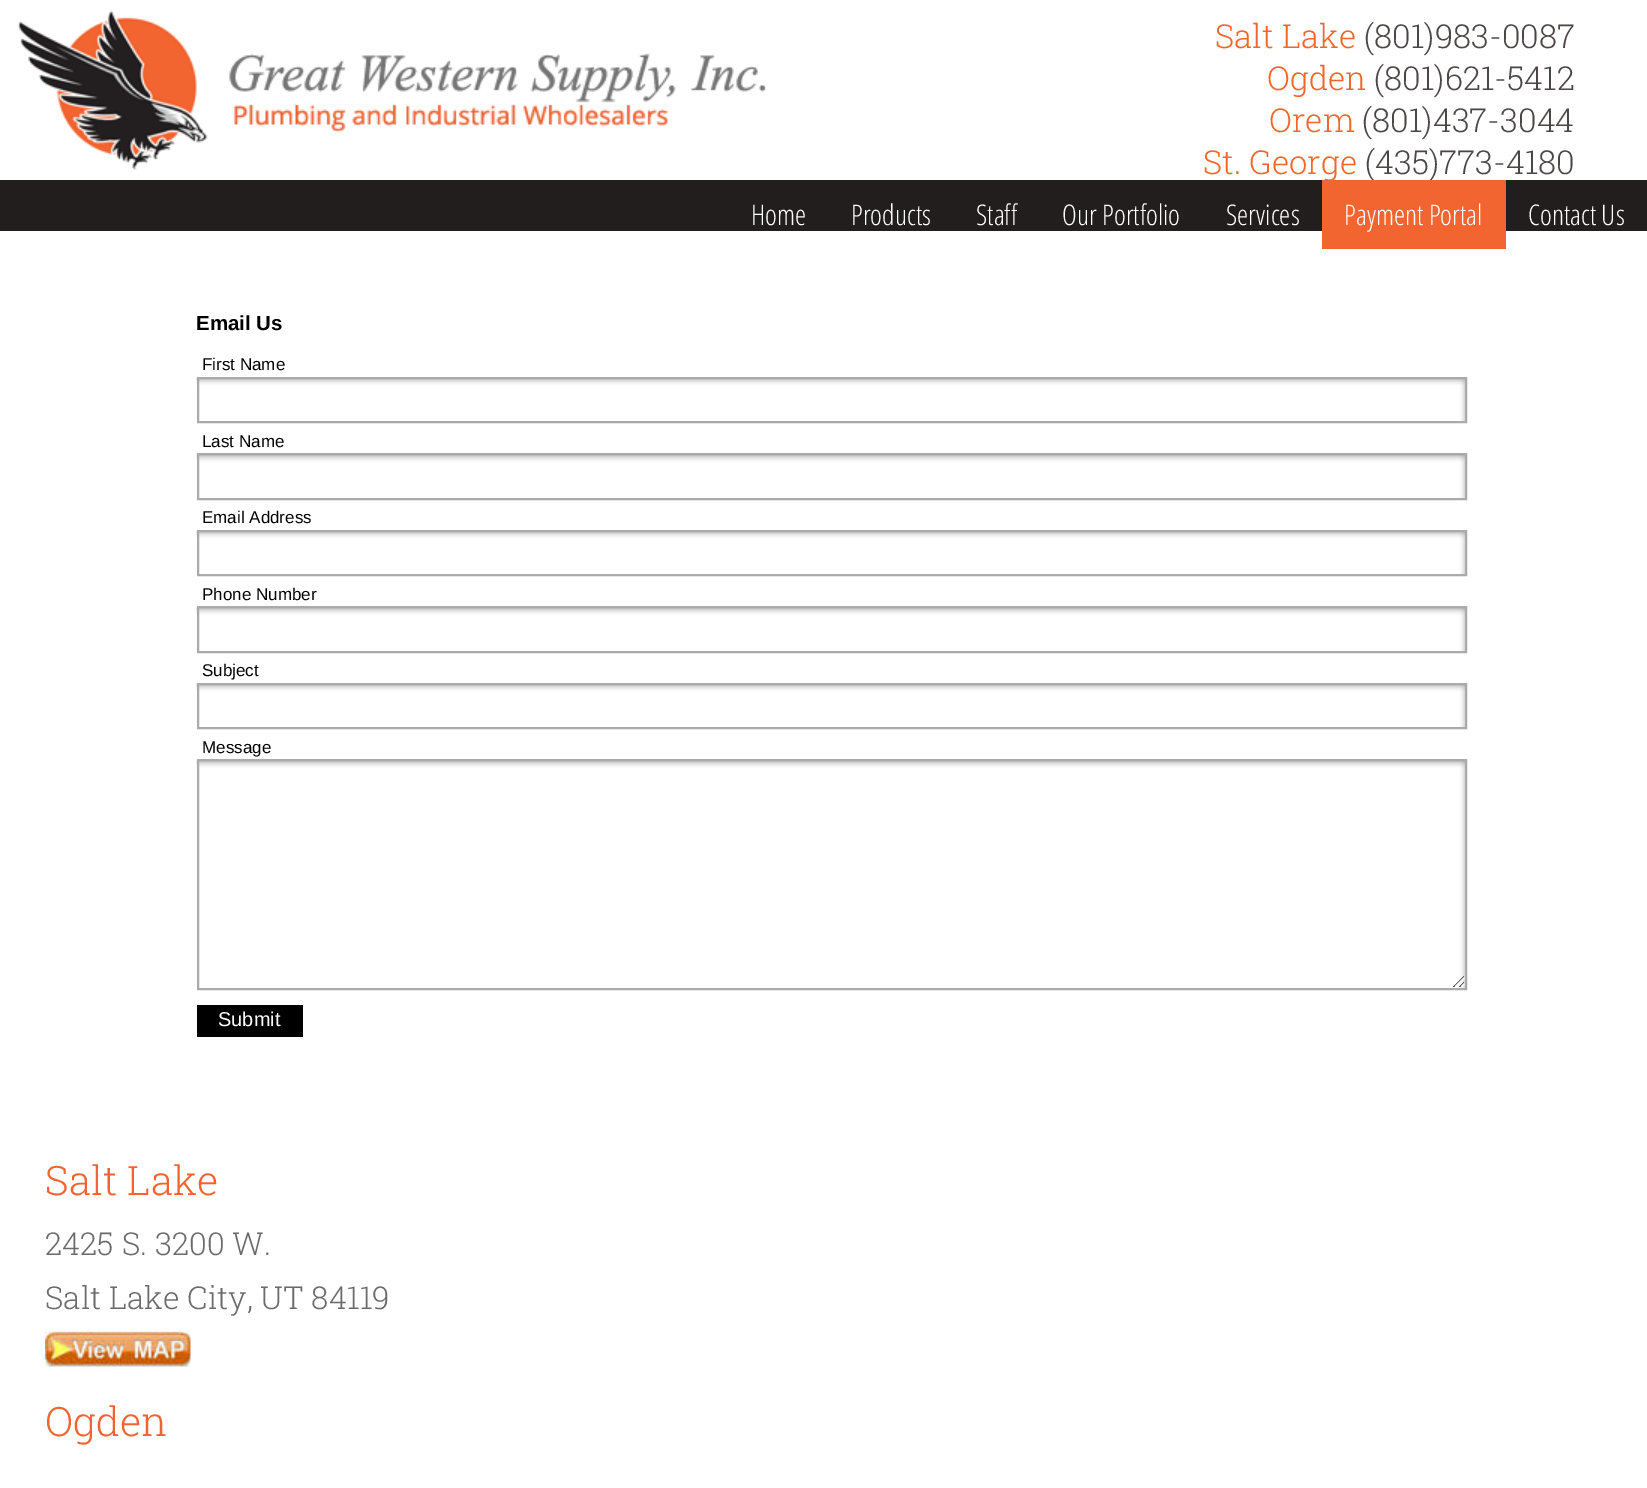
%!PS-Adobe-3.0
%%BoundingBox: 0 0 1647 1488
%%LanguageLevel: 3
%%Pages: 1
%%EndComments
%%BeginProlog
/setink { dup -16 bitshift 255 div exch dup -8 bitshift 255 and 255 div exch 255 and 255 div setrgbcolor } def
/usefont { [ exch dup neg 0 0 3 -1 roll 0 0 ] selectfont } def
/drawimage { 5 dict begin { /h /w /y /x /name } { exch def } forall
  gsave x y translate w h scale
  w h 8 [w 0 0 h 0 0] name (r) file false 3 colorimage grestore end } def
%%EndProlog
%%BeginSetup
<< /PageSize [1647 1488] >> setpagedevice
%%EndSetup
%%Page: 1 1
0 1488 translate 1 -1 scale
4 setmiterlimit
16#FFFFFF setink
0 0 1647 1488 rectfill
(img1.raw) 18 10 748 160 drawimage
/RobotoSlab-Light 33 usefont
16#F26729 setink
1215 48 moveto (Salt Lake) show
16#4A4746 setink
1364 48 moveto (\(801\)983-0087) show
16#F26729 setink
1267 90 moveto (Ogden) show
16#4A4746 setink
1374 90 moveto (\(801\)621-5412) show
16#F26729 setink
1269 132 moveto (Orem) show
16#4A4746 setink
1362 132 moveto (\(801\)437-3044) show
16#F26729 setink
1203 174 moveto (St. George) show
16#4A4746 setink
1365 174 moveto (\(435\)773-4180) show
16#221E1D setink
0 180 1647 51 rectfill
/OpenSansCondensed-Light 28.5 usefont
16#FFFFFF setink
[
    [(Home) 751 225]
    [(Products) 851 225]
    [(Staff) 976 225]
    [(Our Portfolio) 1062 225]
    [(Services) 1226 225]
] { aload pop moveto show } forall
16#F26430 setink
1322 180 184 69 rectfill
16#FFFFFF setink
1344 225 moveto (Payment Portal) show
1528 225 moveto (Contact Us) show
/LiberationSans-Bold 20.5 usefont
16#000000 setink
196 330 moveto (Email Us) show
/LiberationSans-Regular 17 usefont
202 370 moveto (First Name) show
(img2.raw) 196 378 1269 45 drawimage
16#AAAAAA setink
2 setlinewidth
198 378 1268 44 rectstroke
16#000000 setink
202 447 moveto (Last Name) show
(img3.raw) 196 454 1269 46 drawimage
16#AAAAAA setink
198 454 1268 45 rectstroke
16#000000 setink
202 523 moveto (Email Address) show
(img2.raw) 196 531 1269 45 drawimage
16#AAAAAA setink
198 531 1268 44 rectstroke
16#000000 setink
202 600 moveto (Phone Number) show
(img3.raw) 196 607 1269 46 drawimage
16#AAAAAA setink
198 607 1268 45 rectstroke
16#000000 setink
202 676 moveto (Subject) show
(img2.raw) 196 684 1269 45 drawimage
16#AAAAAA setink
198 684 1268 44 rectstroke
16#000000 setink
202 753 moveto (Message) show
(img4.raw) 196 760 1269 230 drawimage
16#AAAAAA setink
198 760 1268 229 rectstroke
16#000000 setink
197 1005 106 32 rectfill
/LiberationSans-Regular 20 usefont
16#FFFFFF setink
218 1026 moveto (Submit) show
/RobotoSlab-Light 40.5 usefont
16#F16431 setink
45 1195 moveto (Salt Lake) show
/RobotoSlab-Light 31.5 usefont
16#6D6B6A setink
45 1255 moveto (2425 S. 3200 W.) show
45 1309 moveto (Salt Lake City, UT 84119) show
(img5.raw) 45 1330 146 37 drawimage
/RobotoSlab-Light 40.5 usefont
16#F16431 setink
45 1436 moveto (Ogden) show
showpage
%%EOF
